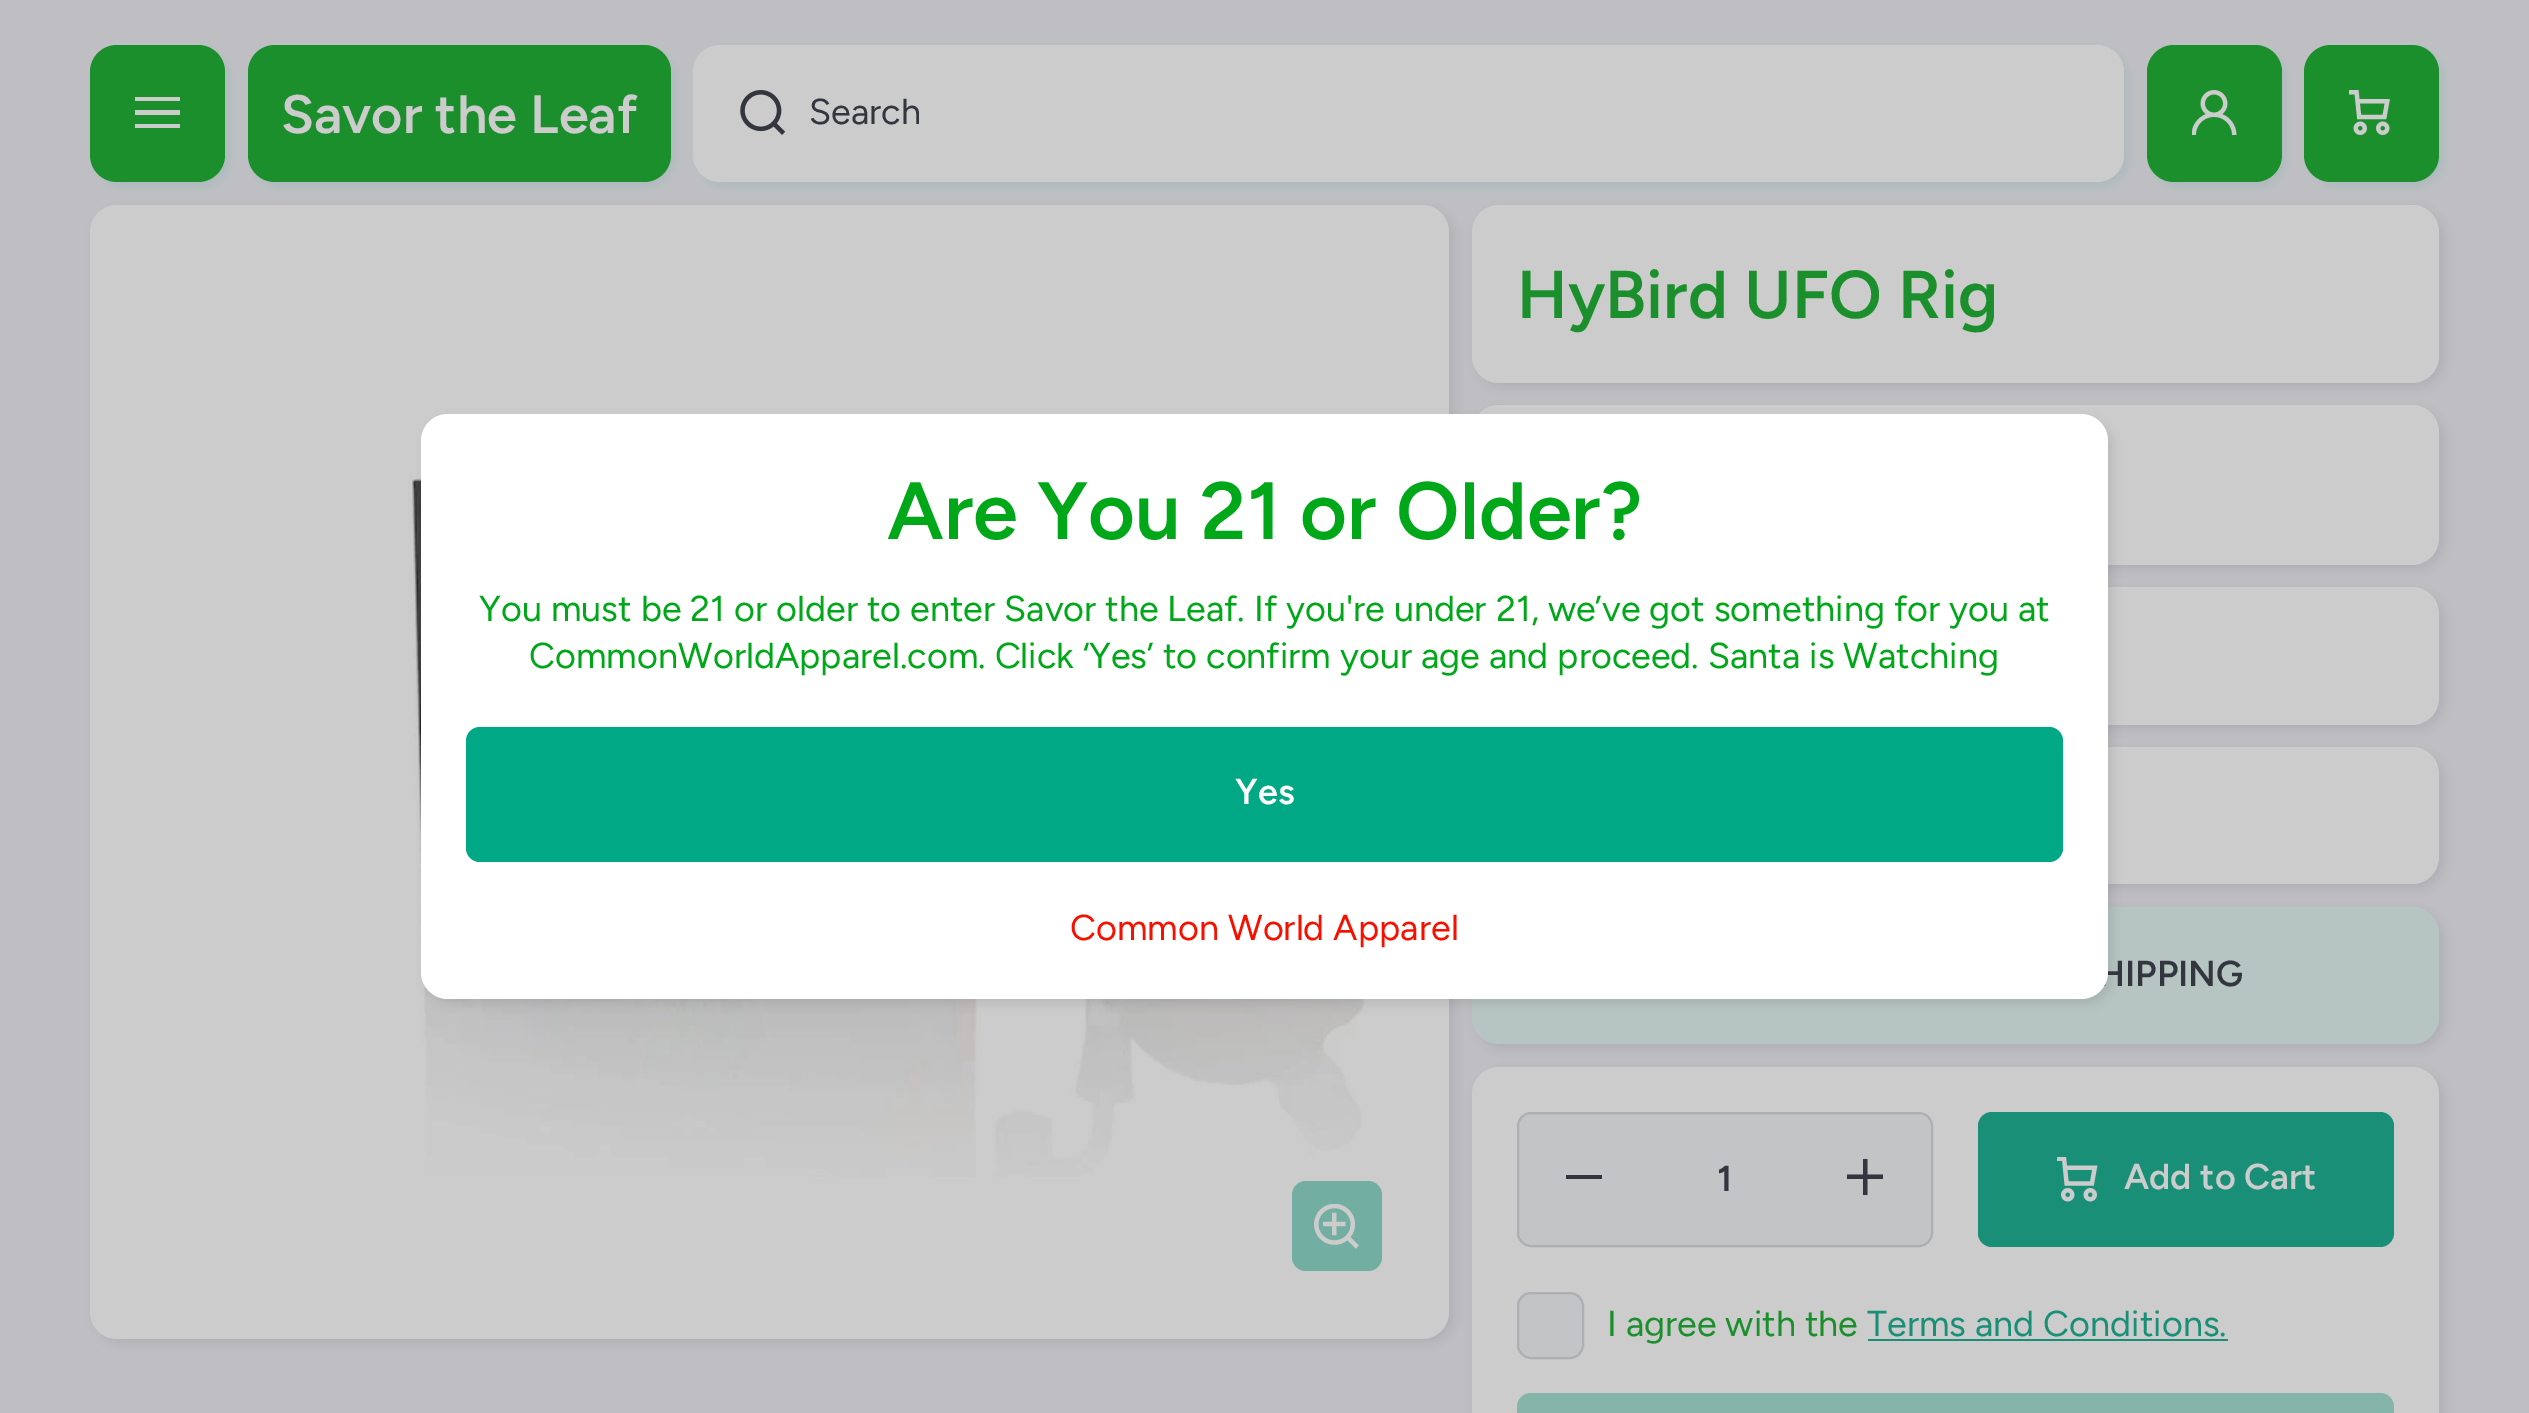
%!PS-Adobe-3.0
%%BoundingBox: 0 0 2529 1413
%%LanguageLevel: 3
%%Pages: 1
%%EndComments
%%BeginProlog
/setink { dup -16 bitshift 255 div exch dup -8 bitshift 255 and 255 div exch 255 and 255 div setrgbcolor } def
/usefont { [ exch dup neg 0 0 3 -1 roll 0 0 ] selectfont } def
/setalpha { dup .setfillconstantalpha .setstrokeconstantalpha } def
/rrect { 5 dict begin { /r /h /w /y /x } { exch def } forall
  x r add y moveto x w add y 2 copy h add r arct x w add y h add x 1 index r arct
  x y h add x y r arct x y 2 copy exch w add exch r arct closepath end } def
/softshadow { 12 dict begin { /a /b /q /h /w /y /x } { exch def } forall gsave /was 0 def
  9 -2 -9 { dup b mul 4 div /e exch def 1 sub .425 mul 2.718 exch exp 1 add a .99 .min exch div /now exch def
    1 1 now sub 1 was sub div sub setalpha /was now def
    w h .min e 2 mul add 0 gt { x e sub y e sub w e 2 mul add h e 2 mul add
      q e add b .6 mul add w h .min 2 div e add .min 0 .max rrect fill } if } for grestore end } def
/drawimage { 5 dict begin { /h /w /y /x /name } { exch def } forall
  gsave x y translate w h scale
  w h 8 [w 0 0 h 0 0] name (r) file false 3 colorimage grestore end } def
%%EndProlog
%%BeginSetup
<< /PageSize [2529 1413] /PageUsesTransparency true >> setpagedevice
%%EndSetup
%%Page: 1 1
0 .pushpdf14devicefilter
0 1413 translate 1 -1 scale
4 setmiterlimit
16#BFBFC3 setink
0 0 2529 1413 rectfill
16#1A8F77 setink
95 50 135 137 27 4.5 0.1 softshadow
16#1A8F2B setink
90 45 135 137 27 rrect fill
[
    [135 97 45 4 16#CCCCCC]
    [135 110 45 5 16#CCCCCC]
    [135 124 45 4 16#CCCCCC]
] { aload pop setink rectfill } forall
16#1A8F77 setink
252 50 423 137 27 4.5 0.1 softshadow
16#1A8F2B setink
248 45 423 137 27 rrect fill
/Figtree-SemiBold 54 usefont
16#CCCCCC setink
281 133 moveto (Savor the Leaf) show
16#1A8F77 setink
698 50 1431 137 27 4.5 0.1 softshadow
16#CCCCCC setink
693 45 1431 137 27 rrect fill
(img1.raw) 740 90 45 45 drawimage
/Figtree-Regular 36 usefont
16#33363F setink
809 124 moveto (Search) show
16#1A8F77 setink
2151 50 135 137 27 4.5 0.1 softshadow
16#1A8F2B setink
2147 45 135 137 27 rrect fill
(img2.raw) 2192 90 45 45 drawimage
16#1A8F77 setink
2309 50 135 137 27 4.5 0.1 softshadow
16#1A8F2B setink
2304 45 135 137 27 rrect fill
(img3.raw) 2349 90 41 45 drawimage
16#33363F setink
95 209 1359 1134 27 4.5 0.1 softshadow
16#CCCCCC setink
90 205 1359 1134 27 rrect fill
(img4.raw) 408 440 978 737 drawimage
16#73AEA2 setink
1292 1181 90 90 14 rrect fill
(img5.raw) 1314 1204 45 45 drawimage
16#33363F setink
1476 209 968 178 27 4.5 0.1 softshadow
16#CCCCCC setink
1472 205 967 178 27 rrect fill
/Figtree-SemiBold 67.5 usefont
16#1A8F2B setink
1517 318 moveto (HyBird UFO Rig) show
16#33363F setink
1476 410 968 159 27 4.5 0.1 softshadow
16#CCCCCC setink
1472 405 967 160 27 rrect fill
16#33363F setink
1476 592 968 137 27 4.5 0.1 softshadow
16#CCCCCC setink
1472 587 967 138 27 rrect fill
16#33363F setink
1476 752 968 137 27 4.5 0.1 softshadow
16#CCCCCC setink
1472 747 967 137 27 rrect fill
16#33363F setink
1476 911 968 138 27 4.5 0.1 softshadow
16#CCCCCC setink
1472 907 967 137 27 rrect fill
0.3 setalpha
16#85B4AA setink
1472 907 967 137 27 rrect fill
/Figtree-SemiBold 36 usefont
1 setalpha
16#33363F setink
2098 986 moveto (HIPPING) show
1476 1071 968 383 27 4.5 0.1 softshadow
16#CCCCCC setink
1472 1067 967 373 27 rrect fill
16#C3C4C6 setink
1518 1113 414 133 13 rrect gsave fill grestore
16#AEAFB3 setink
2 setlinewidth
stroke
16#33363F setink
1566 1175 36 4 rectfill
1717 1191 moveto (1) show
1867.5 1159 moveto 1863 1159 lineto 1863 1174.5 lineto 1847 1174.5 lineto 1847 1179 lineto 1863 1179 lineto 1863 1195 lineto 1867.5 1195 lineto 1867.5 1179 lineto 1883 1179 lineto 1883 1174.5 lineto 1867.5 1174.5 lineto closepath fill
16#1A8F77 setink
1978 1112 416 135 14 rrect fill
(img6.raw) 2057 1157 41 45 drawimage
16#CCCCCC setink
2124 1189 moveto (Add to Cart) show
16#C3C4C6 setink
1518 1293 65 65 13 rrect gsave fill grestore
16#AEAFB3 setink
stroke
/Figtree-Regular 36 usefont
16#1A8F2B setink
1607 1336 moveto (I agree with the) show
16#1A8F77 setink
1867 1336 moveto (Terms and Conditions.) show
1868 1339 360 2 rectfill
16#85B4AA setink
1517 1393 877 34 14 rrect fill
16#242835 setink
425 419 1688 585 27 4.5 0.1 softshadow
16#FFFFFF setink
421 414 1687 585 27 rrect fill
/Figtree-SemiBold 81 usefont
16#00A819 setink
887 539 moveto (Are You 21 or Older?) show
/Figtree-Regular 36 usefont
479 621 moveto (You must be 21 or older to enter Savor the Leaf. If you're under 21, we’ve got something for you at) show
529 668 moveto (CommonWorldApparel.com. Click ‘Yes’ to confirm your age and proceed. Santa is Watching) show
16#00A886 setink
466 727 1597 135 14 rrect fill
/Figtree-SemiBold 36 usefont
16#FFFFFF setink
1235 804 moveto (Yes) show
/Figtree-Regular 36 usefont
16#F51000 setink
1070 940 moveto (Common World Apparel) show
.poppdf14devicefilter showpage
%%EOF
